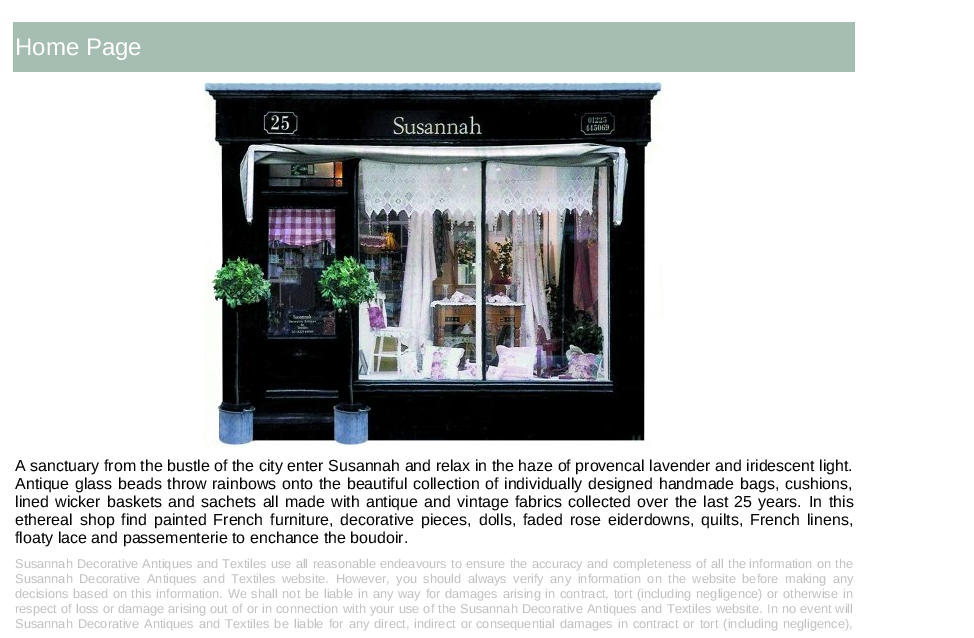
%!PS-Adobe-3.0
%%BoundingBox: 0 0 974 638
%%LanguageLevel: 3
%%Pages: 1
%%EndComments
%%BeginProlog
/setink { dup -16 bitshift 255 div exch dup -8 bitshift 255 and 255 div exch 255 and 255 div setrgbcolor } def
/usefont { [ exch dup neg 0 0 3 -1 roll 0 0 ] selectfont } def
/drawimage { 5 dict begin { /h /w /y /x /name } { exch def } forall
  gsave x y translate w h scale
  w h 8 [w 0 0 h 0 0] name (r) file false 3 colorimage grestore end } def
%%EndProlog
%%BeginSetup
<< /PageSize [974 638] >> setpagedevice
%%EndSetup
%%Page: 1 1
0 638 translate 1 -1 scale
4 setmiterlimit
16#FFFFFF setink
0 0 974 638 rectfill
16#A6BEB1 setink
13 22 842 50 rectfill
/LiberationSans-Regular 24 usefont
16#FFFFFF setink
15 55 moveto (Home Page) show
(img1.raw) 204 79 460 369 drawimage
/LiberationSans-Regular 16 usefont
16#000000 setink
15 471 moveto (A sanctuary from the bustle of the city enter Susannah and relax in the haze of provencal lavender and iridescent light.) show
15 489 moveto 1.25 0 32 (Antique glass beads throw rainbows onto the beautiful collection) widthshow
485 489 moveto 1.25 0 32 (of individually designed handmade bags, cushions,) widthshow
15 507 moveto 2 0 32 (lined wicker) widthshow
107 507 moveto 1.75 0 32 (baskets and sachets all made with antique and vintage fabrics) widthshow
568 507 moveto 1.75 0 32 (collected over the last 25 years.) widthshow
809 507 moveto 2 0 32 (In this) widthshow
15 525 moveto 2.5 0 32 (ethereal shop find) widthshow
154 525 moveto 2.5 0 32 (painted French furniture, decorative pieces, dolls, faded rose) widthshow
608 525 moveto 2.5 0 32 (eiderdowns, quilts, French linens,) widthshow
15 543 moveto (floaty lace and passementerie to enchance the boudoir.) show
/LiberationSans-Regular 12.8 usefont
16#C1C1C1 setink
15 568 moveto 0.75 0 32 (Susannah Decorative Antiques and Textiles use all reasonable) widthshow
380 568 moveto 0.75 0 32 (endeavours to ensure the accuracy and completeness of all the) widthshow
749 568 moveto 0.75 0 32 (information on the) widthshow
15 583 moveto 3 0 32 (Susannah Decorative Antiques and Textiles) widthshow
282 583 moveto 3 0 32 (website. However, you should always verify any information on) widthshow
668 583 moveto 3 0 32 (the website before making any) widthshow
15 598 moveto 1.1 0 32 (decisions based on this) widthshow
156 598 moveto 1.1 0 32 (information. We shall not be liable in any way for damages) widthshow
503 598 moveto 1.1 0 32 (arising in contract, tort \(including negligence\) or otherwise) widthshow
843 598 moveto (in) show
15 613 moveto 0.5 0 32 (respect of loss or damage arising out of or in connection) widthshow
343 613 moveto 0.5 0 32 (with your use of the Susannah Decorative Antiques and) widthshow
667 613 moveto 1 0 32 (Textiles website.) widthshow
767 613 moveto 0.5 0 32 (In no event will) widthshow
15 628 moveto 1.5 0 32 (Susannah Decorative) widthshow
144 628 moveto 1.5 0 32 (Antiques and Textiles be liable for any direct, indirect or) widthshow
476 628 moveto 1.5 0 32 (consequential damages in contract or tort \(including) widthshow
783 628 moveto (negligence\),) show
showpage
%%EOF
